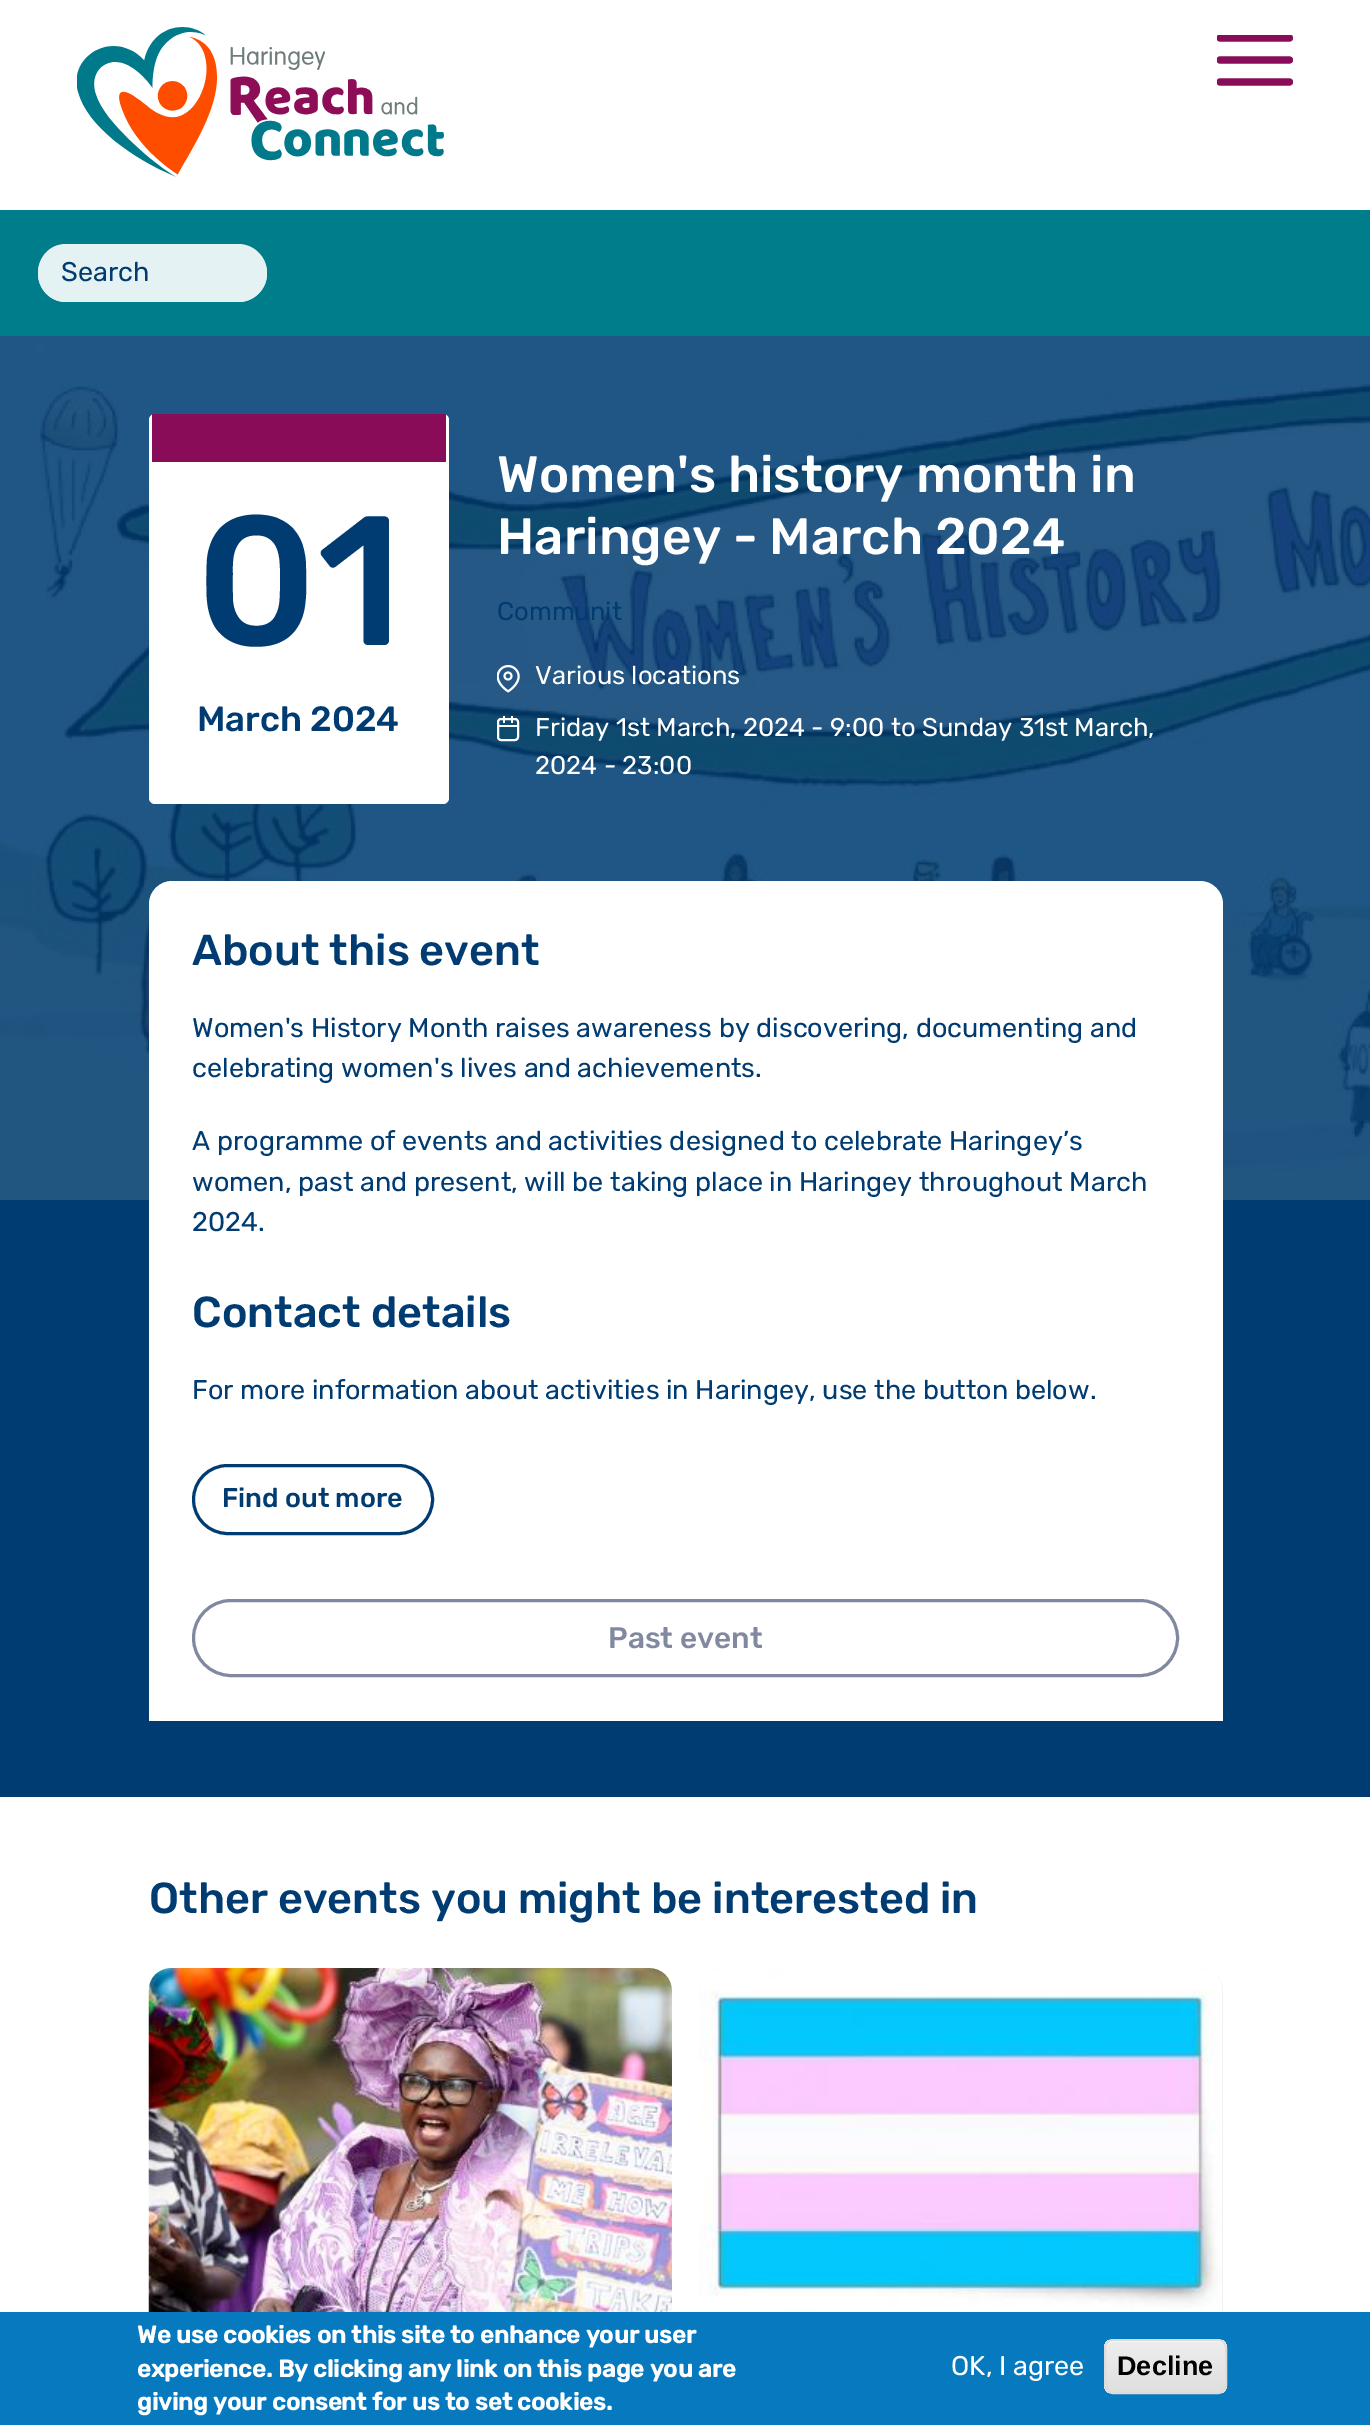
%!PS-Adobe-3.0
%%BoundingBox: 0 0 1370 2425
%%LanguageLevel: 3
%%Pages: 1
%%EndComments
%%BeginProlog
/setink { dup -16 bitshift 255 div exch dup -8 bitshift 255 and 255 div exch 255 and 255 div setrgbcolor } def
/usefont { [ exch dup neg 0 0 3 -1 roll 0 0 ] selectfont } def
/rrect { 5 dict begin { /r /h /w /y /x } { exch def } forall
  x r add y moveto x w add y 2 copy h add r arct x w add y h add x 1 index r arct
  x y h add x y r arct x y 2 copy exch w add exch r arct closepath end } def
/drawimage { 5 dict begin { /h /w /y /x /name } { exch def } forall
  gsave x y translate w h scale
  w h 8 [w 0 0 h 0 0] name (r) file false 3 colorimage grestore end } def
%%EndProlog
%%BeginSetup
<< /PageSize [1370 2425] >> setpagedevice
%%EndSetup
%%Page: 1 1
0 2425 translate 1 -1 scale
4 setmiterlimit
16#FFFFFF setink
0 0 1370 2425 rectfill
(img1.raw) 77 27 367 150 drawimage
gsave
1217 35 76 51 rectclip
16#890C58 setink
7.2 setlinewidth
1 setlinecap
1220 38 moveto 1289.5 38 lineto stroke
1220 60 moveto 1289.5 60 lineto stroke
1220 82 moveto 1289.5 82 lineto stroke
grestore
16#007D8A setink
0 210 1370 126 rectfill
16#E5F2F3 setink
66.5 245 moveto 218 245 lineto 218 302 lineto 66.5 302 lineto 51 302 38 289 38 273.5 curveto 38 258 51 245 66.5 245 curveto closepath fill
66 244 moveto 218 244 lineto 218 302 lineto 66 302 lineto 50 302 38 289 38 273 curveto 38 257 50 244 66 244 curveto closepath 66 248 moveto 218 248 lineto 218 298 lineto 66 298 lineto 52 298 40 287 40 273 curveto 40 259 52 248 66 248 curveto closepath eofill
/Rubik-Regular 27 usefont
16#003C71 setink
61 281 moveto (Search) show
16#E5F2F3 setink
218 245 moveto 238.5 245 lineto 254 245 267 258 267 273.5 curveto 267 289 254 302 238.5 302 curveto 218 302 lineto closepath fill
218 244 moveto 238 244 lineto 254 244 267 257 267 273 curveto 267 289 254 302 238 302 curveto 218 302 lineto closepath 218 248 moveto 238 248 lineto 253 248 264 259 264 273 curveto 264 287 253 298 238 298 curveto 218 298 lineto closepath eofill
16#003C71 setink
0 336 1370 1461 rectfill
(img2.raw) 0 336 1370 864 drawimage
16#FFFFFF setink
149 414 300 390 6 rrect fill
16#890C58 setink
152 414 294 48 rectfill
/Rubik-Medium 184 usefont
16#003C71 setink
196 645 moveto (01) show
/Rubik-Medium 35 usefont
197 731 moveto (March 2024) show
/Rubik-Medium 51.25 usefont
16#FFFFFF setink
497 492 moveto (Women's history month in) show
497 554 moveto (Haringey - March 2024) show
/Rubik-Regular 25.65 usefont
16#003C71 setink
497 620 moveto (Communit) show
(img3.raw) 497 665 23 28 drawimage
16#FFFFFF setink
535 684 moveto (Various locations) show
2 setlinewidth
498 719 20 21 3 rrect stroke
[
    [499 725 19 2 16#FFFFFF]
    [503 716 2 7 16#FFFFFF]
    [511 716 2 7 16#FFFFFF]
] { aload pop setink rectfill } forall
535 736 moveto (Friday 1st March, 2024 - 9:00 to Sunday 31st March,) show
535 774 moveto (2024 - 23:00) show
172 881 moveto 1200 881 lineto 1212.5 881 1223 891.5 1223 904 curveto 1223 1721 lineto 149 1721 lineto 149 904 lineto 149 891.5 159.5 881 172 881 curveto closepath fill
/Rubik-Medium 43.25 usefont
16#003C71 setink
192 965 moveto (About this event) show
/Rubik-Regular 27 usefont
[
    [(Women's History Month raises awareness by discovering, documenting and) 192 1037]
    [(celebrating women's lives and achievements.) 192 1077]
    [(A programme of events and activities designed to celebrate Haringey’s) 192 1150]
    [(women, past and present, will be taking place in Haringey throughout March) 192 1191]
    [(2024.) 192 1231]
] { aload pop moveto show } forall
/Rubik-Medium 43.25 usefont
192 1327 moveto (Contact details) show
/Rubik-Regular 27 usefont
192 1399 moveto (For more information about activities in Haringey, use the button below.) show
3 setlinewidth
193.5 1465.5 239 68 34 rrect stroke
/Rubik-Medium 27 usefont
222 1507 moveto (Find out more) show
16#80899F setink
193.5 1600.5 984 75 37.5 rrect stroke
/Rubik-Medium 29.75 usefont
608 1648 moveto (Past event) show
/Rubik-Medium 43.25 usefont
16#003C71 setink
149 1913 moveto (Other events you might be interested in) show
(img4.raw) 148 1968 524 344 drawimage
16#F1F2F2 setink
699 1968 524 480 23 rrect fill
(img5.raw) 699 1968 523 344 drawimage
16#0779BF setink
0 2312 1370 113 rectfill
/Rubik-Bold 24 usefont
16#FFFFFF setink
[
    [(We use cookies on this site to enhance your user) 137 2343]
    [(experience. By clicking any link on this page you are) 137 2377]
    [(giving your consent for us to set cookies.) 137 2410]
] { aload pop moveto show } forall
/Rubik-Regular 27 usefont
951 2375 moveto (OK, I agree) show
gsave
1104 2339 123 55 9 rrect clip newpath
gsave 1104 2340 moveto 1227 2340 lineto 1227 2393 lineto 1104 2393 lineto closepath clip newpath
<< /ShadingType 2 /ColorSpace /DeviceRGB /Coords [1166 2340 1166 2393] /Extend [true true] /Function << /FunctionType 3 /Domain [0 1] /Functions [<< /FunctionType 2 /Domain [0 1] /C0 [0.929 0.929 0.929] /C1 [0.929 0.929 0.929] /N 1 >> << /FunctionType 2 /Domain [0 1] /C0 [0.929 0.929 0.929] /C1 [0.875 0.875 0.875] /N 1 >>] /Bounds [0.05] /Encode [0 1 0 1] >> >> shfill grestore
grestore
1113 2342 moveto 1218 2342 lineto 1222 2342 1226 2345 1226 2349 curveto 1226 2336 1209 2340 1201 2340 curveto 1131 2340 lineto 1123 2340 1106 2336 1106 2349 curveto 1106 2345 1109 2342 1113 2342 curveto closepath fill
16#DCDCDC setink
2 setlinewidth
1105 2340 121 53 8 rrect stroke
/LiberationSans-Bold 27 usefont
16#000000 setink
1117 2375 moveto (Decline) show
showpage
%%EOF
